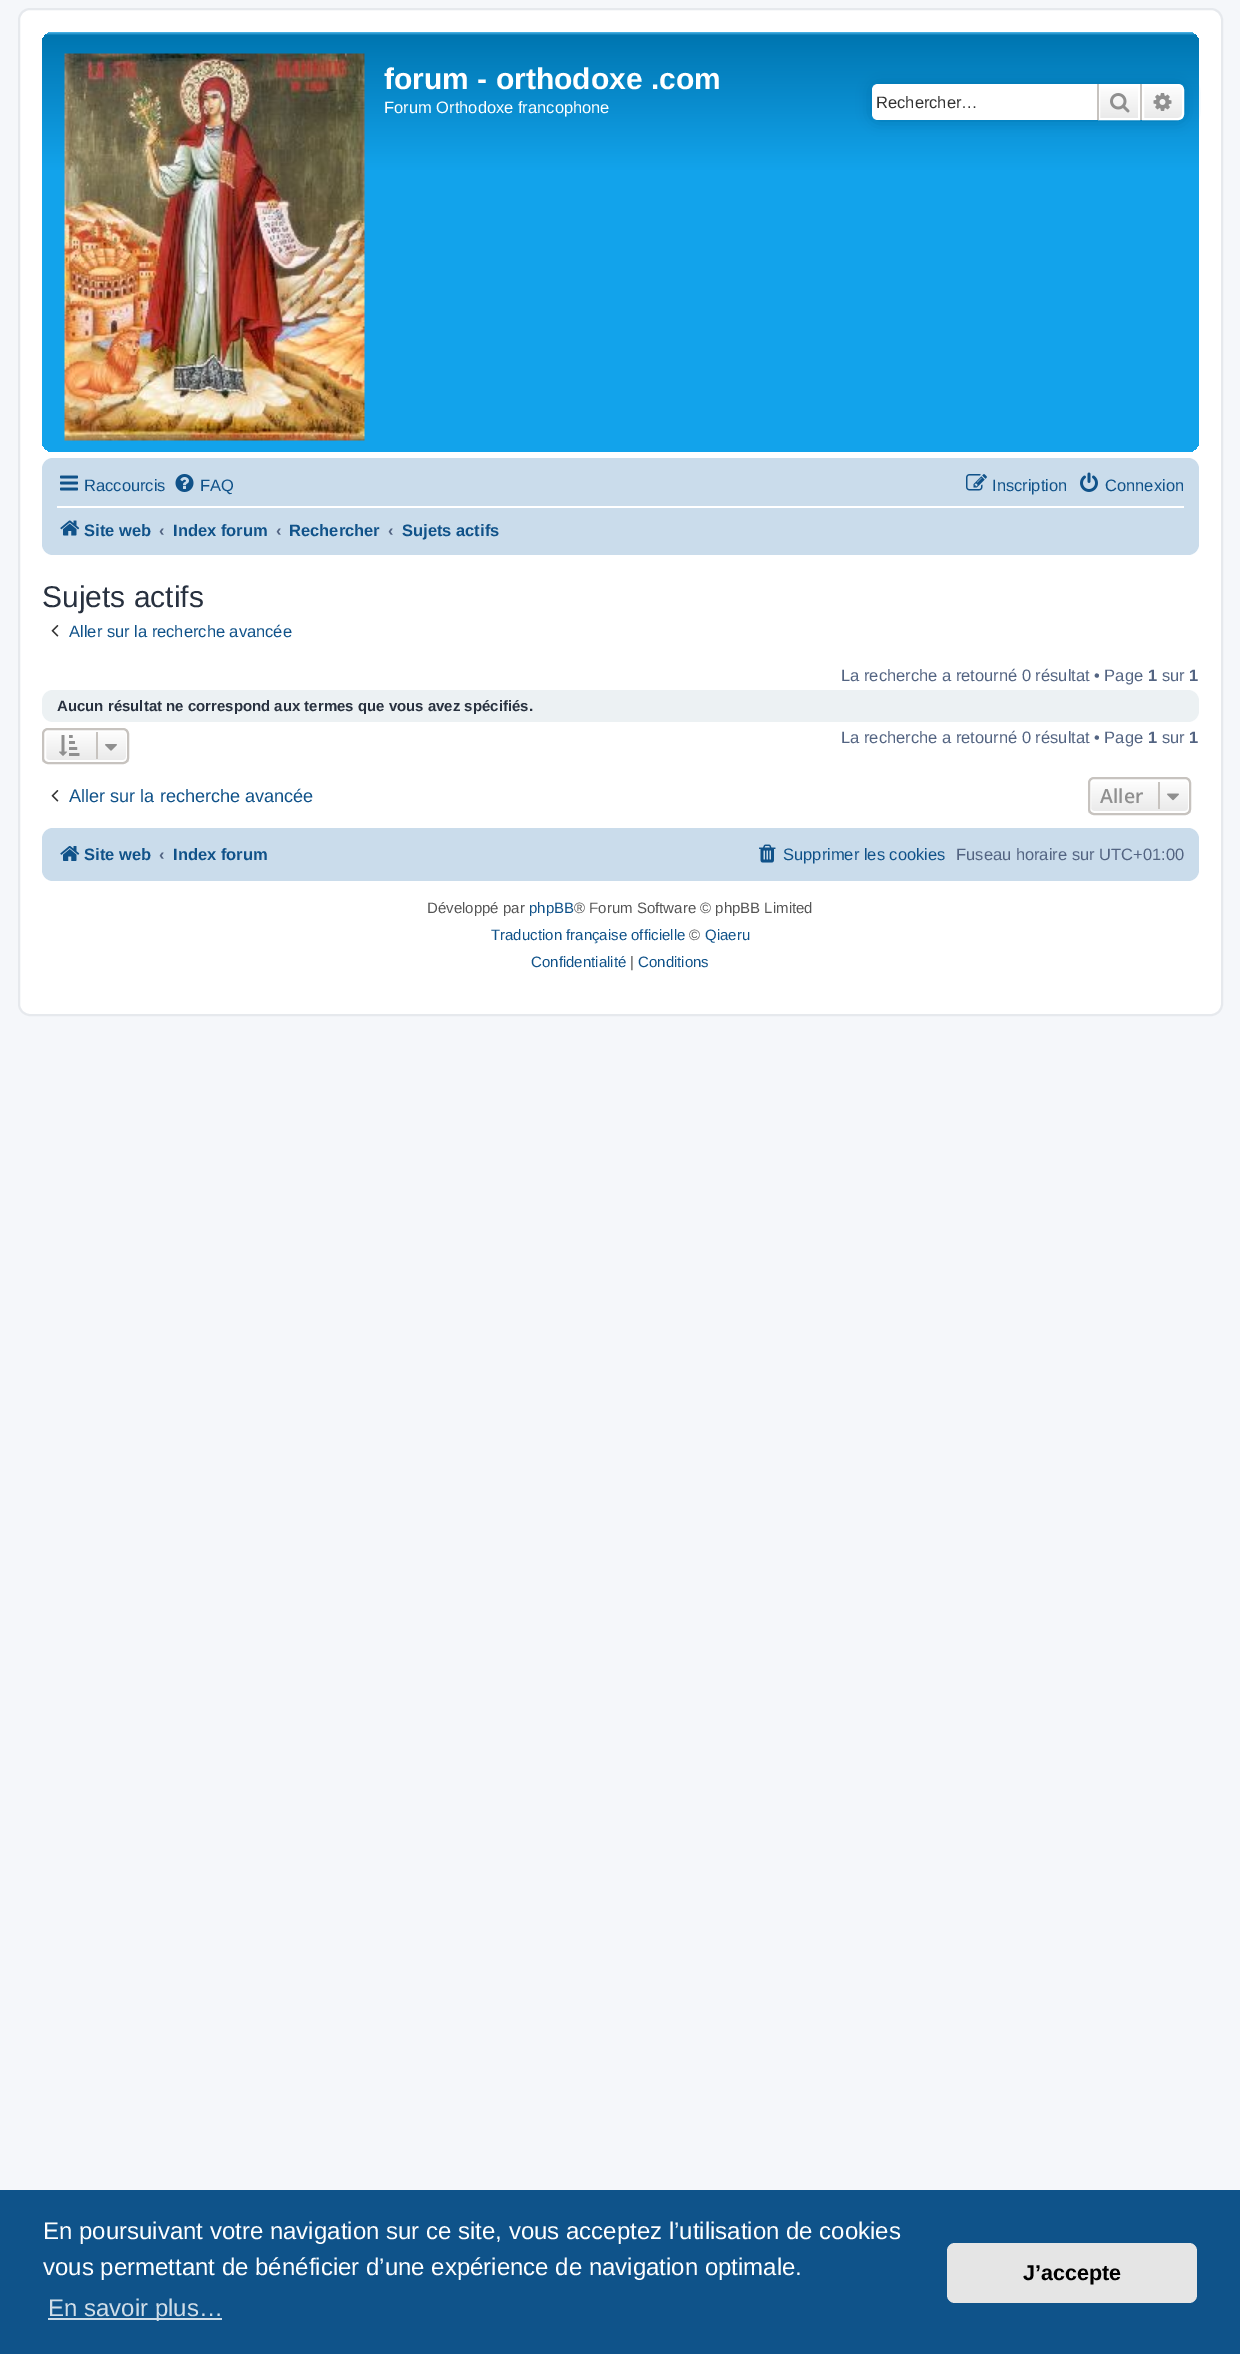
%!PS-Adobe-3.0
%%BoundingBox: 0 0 1240 2354
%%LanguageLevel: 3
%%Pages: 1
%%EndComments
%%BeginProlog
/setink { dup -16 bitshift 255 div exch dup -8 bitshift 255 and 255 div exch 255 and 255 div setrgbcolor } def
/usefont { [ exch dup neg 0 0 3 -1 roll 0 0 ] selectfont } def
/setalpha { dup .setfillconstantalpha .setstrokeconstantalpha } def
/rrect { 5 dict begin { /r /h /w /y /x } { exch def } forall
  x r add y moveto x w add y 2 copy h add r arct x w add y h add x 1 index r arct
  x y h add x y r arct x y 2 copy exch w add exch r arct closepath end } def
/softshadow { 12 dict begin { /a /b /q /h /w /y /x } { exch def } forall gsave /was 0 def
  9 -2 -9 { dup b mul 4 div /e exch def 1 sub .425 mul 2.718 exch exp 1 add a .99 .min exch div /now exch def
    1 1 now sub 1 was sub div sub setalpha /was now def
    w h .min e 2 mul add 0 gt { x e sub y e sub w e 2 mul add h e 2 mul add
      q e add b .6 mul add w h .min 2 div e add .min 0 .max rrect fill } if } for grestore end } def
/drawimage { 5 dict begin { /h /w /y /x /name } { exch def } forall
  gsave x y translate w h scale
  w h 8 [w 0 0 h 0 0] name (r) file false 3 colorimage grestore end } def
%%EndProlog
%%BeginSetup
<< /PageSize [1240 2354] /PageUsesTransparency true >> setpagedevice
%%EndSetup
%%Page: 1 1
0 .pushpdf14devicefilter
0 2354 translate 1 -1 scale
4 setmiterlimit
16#F5F7FA setink
0 0 1240 2354 rectfill
16#FFFFFF setink
19 9 1203 1006 11 rrect gsave fill grestore
16#E6E9ED setink
2 setlinewidth
stroke
gsave 42 32 1157 420 11 rrect clip newpath
<< /ShadingType 2 /ColorSpace /DeviceRGB /Coords [620 31 620 452] /Extend [true true] /Function << /FunctionType 3 /Domain [0 1] /Functions [<< /FunctionType 2 /Domain [0 1] /C0 [0.416 0.808 1] /C1 [0 0.463 0.694] /N 1 >> << /FunctionType 2 /Domain [0 1] /C0 [0 0.463 0.694] /C1 [0.071 0.639 0.922] /N 1 >> << /FunctionType 2 /Domain [0 1] /C0 [0.071 0.639 0.922] /C1 [0.071 0.639 0.922] /N 1 >>] /Bounds [0.01 0.33] /Encode [0 1 0 1 0 1] >> >> shfill grestore
(img1.raw) 64 53 301 388 drawimage
/LiberationSans-Bold 30 usefont
16#FFFFFF setink
384 89 moveto (forum - orthodoxe .com) show
/LiberationSans-Regular 16.5 usefont
384 113 moveto (Forum Orthodoxe francophone) show
16#0075B0 setink
872 84 312 36 6 7.5 1 softshadow
16#FFFFFF setink
878 84 moveto 1097 84 lineto 1097 120 lineto 878 120 lineto 874.5 120 872 117.5 872 114 curveto 872 90 lineto 872 86.5 874.5 84 878 84 curveto closepath fill
16#333333 setink
876 108 moveto (Rechercher…) show
gsave 1100 86 moveto 1138 86 lineto 1138 118 lineto 1100 118 lineto closepath clip newpath
<< /ShadingType 2 /ColorSpace /DeviceRGB /Coords [1119 84 1119 120] /Extend [true true] /Function << /FunctionType 2 /Domain [0 1] /C0 [1 1 1] /C1 [0.914 0.914 0.914] /N 1 >> >> shfill grestore
16#FFFFFF setink
1099 85 40 34 rectstroke
16#C7C3BF setink
1140 84 2 36 rectfill
1097 84 2 36 rectfill
(img2.raw) 1110 93 20 20 drawimage
gsave 1143 85 moveto 1178 85 lineto 1181 85 1183 87 1183 90 curveto 1183 114 lineto 1183 117 1181 119 1178 119 curveto 1143 119 lineto closepath clip newpath
<< /ShadingType 2 /ColorSpace /DeviceRGB /Coords [1163 84 1163 120] /Extend [true true] /Function << /FunctionType 2 /Domain [0 1] /C0 [1 1 1] /C1 [0.914 0.914 0.914] /N 1 >> >> shfill grestore
16#FFFFFF setink
1143 85 moveto 1178 85 lineto 1181 85 1183 87 1183 90 curveto 1183 114 lineto 1183 117 1181 119 1178 119 curveto 1143 119 lineto closepath stroke
(img3.raw) 1153 93 19 18 drawimage
16#CADCEB setink
42 458 1157 97 11 rrect fill
(img4.raw) 60 475 18 16 drawimage
16#105289 setink
84 491 moveto (Raccourcis) show
(img5.raw) 175 474 19 18 drawimage
200 491 moveto (FAQ) show
(img6.raw) 966 474 21 17 drawimage
992 491 moveto (Inscription) show
(img7.raw) 1080 472 18 20 drawimage
1105 491 moveto (Connexion) show
16#FFFFFF setink
57 506 1127 2 rectfill
(img8.raw) 60 520 20 16 drawimage
/LiberationSans-Bold 16.5 usefont
16#105289 setink
84 536 moveto (Site web) show
16#536482 setink
159 536 moveto (‹) show
16#105289 setink
173 536 moveto (Index forum) show
16#536482 setink
276 536 moveto (‹) show
16#105289 setink
289 536 moveto (Rechercher) show
16#536482 setink
388 536 moveto (‹) show
16#105289 setink
402 536 moveto (Sujets actifs) show
/LiberationSans-Regular 30 usefont
16#28313F setink
42 607 moveto (Sujets actifs) show
(img9.raw) 51 625 8 12 drawimage
/LiberationSans-Regular 16.5 usefont
16#105289 setink
69 637 moveto (Aller sur la recherche avancée) show
16#536482 setink
841 681 moveto (La recherche a retourné 0 résultat • Page) show
/LiberationSans-Bold 16.5 usefont
1148 681 moveto (1) show
/LiberationSans-Regular 16.5 usefont
1162 681 moveto (sur) show
/LiberationSans-Bold 16.5 usefont
1189 681 moveto (1) show
16#ECF1F3 setink
42 690 1157 32 11 rrect fill
/LiberationSans-Bold 15 usefont
16#28313F setink
57 711 moveto (Aucun résultat ne correspond aux termes que vous avez spécifiés.) show
gsave
42 728 87 36 6 rrect clip newpath
gsave 42 729 moveto 129 729 lineto 129 762 lineto 42 762 lineto closepath clip newpath
<< /ShadingType 2 /ColorSpace /DeviceRGB /Coords [86 729 86 762] /Extend [true true] /Function << /FunctionType 2 /Domain [0 1] /C0 [1 1 1] /C1 [0.914 0.914 0.914] /N 1 >> >> shfill grestore
grestore
16#FFFFFF setink
45 730 82 31 4 rrect stroke
16#C7C3BF setink
43 729 85 34 5 rrect stroke
(img10.raw) 59 735 21 21 drawimage
96 732 2 27 rectfill
(img11.raw) 105 744 12 7 drawimage
/LiberationSans-Regular 16.5 usefont
16#536482 setink
841 743 moveto (La recherche a retourné 0 résultat • Page) show
/LiberationSans-Bold 16.5 usefont
1148 743 moveto (1) show
/LiberationSans-Regular 16.5 usefont
1162 743 moveto (sur) show
/LiberationSans-Bold 16.5 usefont
1189 743 moveto (1) show
(img9.raw) 51 790 8 12 drawimage
/LiberationSans-Regular 18.1 usefont
16#105289 setink
69 802 moveto (Aller sur la recherche avancée) show
gsave
1088 777 103 38 6 rrect clip newpath
gsave 1088 779 moveto 1191 779 lineto 1191 813 lineto 1088 813 lineto closepath clip newpath
<< /ShadingType 2 /ColorSpace /DeviceRGB /Coords [1139 779 1139 813] /Extend [true true] /Function << /FunctionType 2 /Domain [0 1] /C0 [1 1 1] /C1 [0.914 0.914 0.914] /N 1 >> >> shfill grestore
grestore
16#FFFFFF setink
1090 780 99 32 4 rrect stroke
16#C7C3BF setink
1089 778 101 36 5 rrect stroke
/OpenSans-SemiBold 19.5 usefont
16#8F8F8F setink
1100 803 moveto (Aller) show
16#C7C3BF setink
1158 782 2 27 rectfill
(img12.raw) 1167 793 12 8 drawimage
16#CADCEB setink
42 828 1157 53 11 rrect fill
(img13.raw) 60 846 20 15 drawimage
/LiberationSans-Bold 16.5 usefont
16#105289 setink
84 860 moveto (Site web) show
16#536482 setink
159 860 moveto (‹) show
16#105289 setink
173 860 moveto (Index forum) show
(img14.raw) 759 844 17 19 drawimage
/LiberationSans-Regular 16.5 usefont
783 860 moveto (Supprimer les cookies) show
16#536482 setink
956 860 moveto (Fuseau horaire sur UTC+01:00) show
/LiberationSans-Regular 15 usefont
16#555555 setink
427 913 moveto (Développé par) show
16#105289 setink
529 913 moveto (phpBB) show
16#555555 setink
574 913 moveto (® Forum Software © phpBB Limited) show
16#105289 setink
491 940 moveto (Traduction française officielle) show
16#555555 setink
689 940 moveto (©) show
16#105289 setink
705 940 moveto (Qiaeru) show
531 967 moveto (Confidentialité) show
16#555555 setink
630 967 moveto (|) show
16#105289 setink
638 967 moveto (Conditions) show
16#0F538A setink
0 2190 1240 164 rectfill
/LiberationSans-Regular 24 usefont
16#FFFFFF setink
43 2239 moveto (En poursuivant votre navigation sur ce site, vous acceptez l’utilisation de cookies) show
43 2275 moveto (vous permettant de bénéficier d’une expérience de navigation optimale.) show
16#CFDDE8 setink
48 2318 174 2 rectfill
48 2316 moveto (En savoir plus…) show
16#E5E5E5 setink
947 2243 250 60 8 rrect fill
/LiberationSans-Bold 21.5 usefont
16#000000 setink
1023 2280 moveto (J’accepte) show
.poppdf14devicefilter showpage
%%EOF
